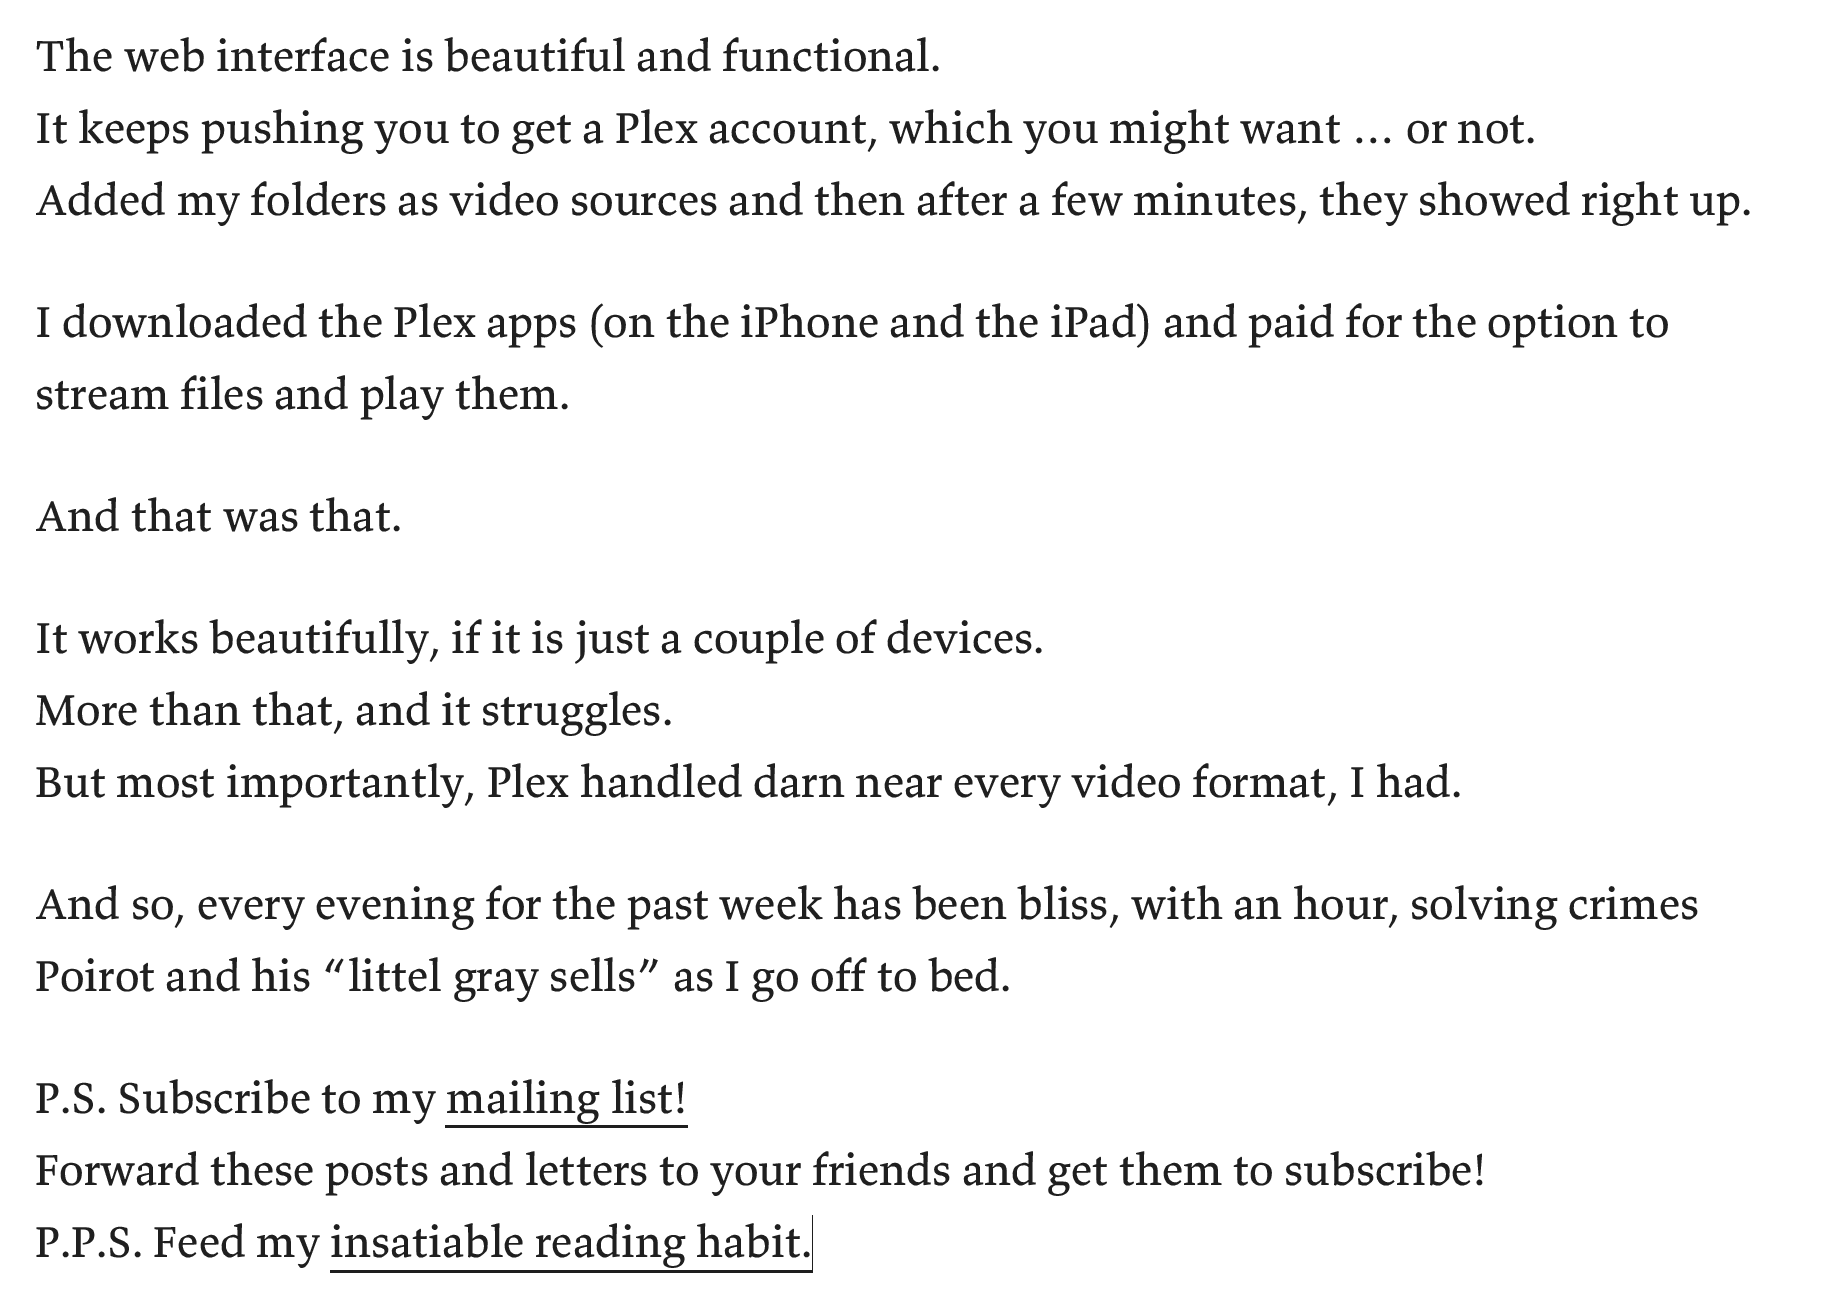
%!PS-Adobe-3.0
%%BoundingBox: 0 0 1835 1302
%%LanguageLevel: 3
%%Pages: 1
%%EndComments
%%BeginProlog
/setink { dup -16 bitshift 255 div exch dup -8 bitshift 255 and 255 div exch 255 and 255 div setrgbcolor } def
/usefont { [ exch dup neg 0 0 3 -1 roll 0 0 ] selectfont } def
%%EndProlog
%%BeginSetup
<< /PageSize [1835 1302] >> setpagedevice
%%EndSetup
%%Page: 1 1
0 1302 translate 1 -1 scale
4 setmiterlimit
16#FFFFFF setink
0 0 1835 1302 rectfill
/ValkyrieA-Regular 45 usefont
16#1F1F1F setink
[
    [(The web interface is beautiful and functional.) 35 71]
    [(It keeps pushing you to get a Plex account, which you might want … or not.) 35 143]
    [(Added my folders as video sources and then after a few minutes, they showed right up.) 35 215]
    [(I downloaded the Plex apps \(on the iPhone and the iPad\) and paid for the option to) 35 337]
    [(stream files and play them.) 35 409]
    [(And that was that.) 35 531]
    [(It works beautifully, if it is just a couple of devices.) 35 653]
    [(More than that, and it struggles.) 35 725]
    [(But most importantly, Plex handled darn near every video format, I had.) 35 797]
    [(And so, every evening for the past week has been bliss, with an hour, solving crimes) 35 919]
    [(Poirot and his “littel gray sells” as I go off to bed.) 35 991]
    [(P.S. Subscribe to my) 35 1113]
    [(mailing list!) 446 1113]
] { aload pop moveto show } forall
16#1E1E1E setink
445 1125 moveto 445 1128 lineto 688 1128 lineto 688 1070 lineto 688 1125 lineto closepath fill
16#1F1F1F setink
35 1185 moveto (Forward these posts and letters to your friends and get them to subscribe!) show
35 1257 moveto (P.P.S. Feed my) show
16#1E1E1E setink
330 1270 moveto 330 1273 lineto 813 1273 lineto 813 1215 lineto 812 1215 lineto 812 1270 lineto closepath fill
16#1F1F1F setink
330 1257 moveto (insatiable reading habit.) show
showpage
%%EOF
